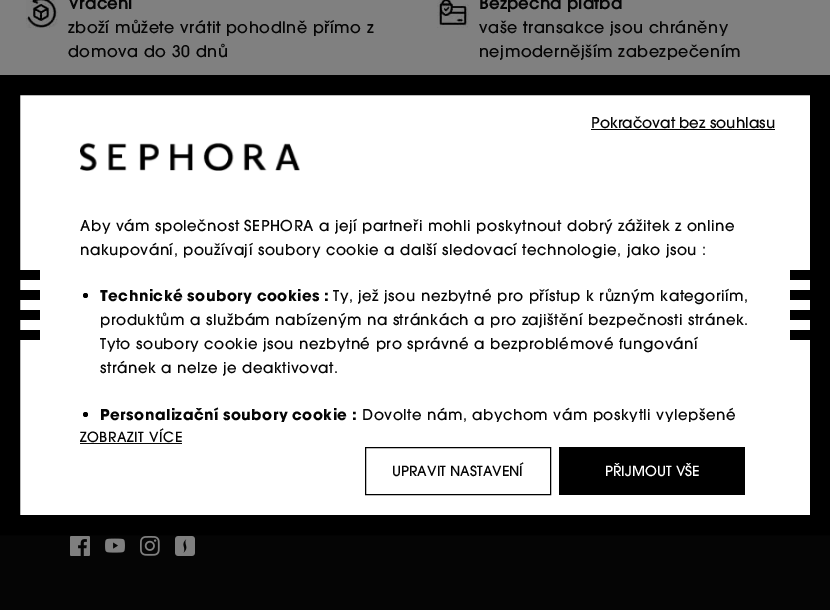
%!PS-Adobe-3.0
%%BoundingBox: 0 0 830 610
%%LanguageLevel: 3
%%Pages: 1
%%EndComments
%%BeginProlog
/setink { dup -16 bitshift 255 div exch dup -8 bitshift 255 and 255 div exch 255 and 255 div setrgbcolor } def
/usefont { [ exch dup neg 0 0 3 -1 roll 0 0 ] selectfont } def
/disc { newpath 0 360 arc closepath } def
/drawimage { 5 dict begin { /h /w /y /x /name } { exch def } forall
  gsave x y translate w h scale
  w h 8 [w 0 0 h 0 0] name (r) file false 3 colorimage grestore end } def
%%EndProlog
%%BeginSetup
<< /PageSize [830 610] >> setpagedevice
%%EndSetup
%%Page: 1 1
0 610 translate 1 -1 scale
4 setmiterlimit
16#808080 setink
0 0 830 610 rectfill
(img1.raw) 26 0 32 28 drawimage
/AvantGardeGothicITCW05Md-Bold 16 usefont
16#050505 setink
68 9 moveto 0.5 0 (Vrácení) ashow
/AvantGardeGothicITCW05Md-Medium 16 usefont
68 33 moveto 0.5 0 (zboží můžete vrátit pohodlně přímo z) ashow
68 57 moveto 0.5 0 (domova do 30 dnů) ashow
(img2.raw) 437 0 32 28 drawimage
/AvantGardeGothicITCW05Md-Bold 16 usefont
479 9 moveto 0.5 0 (Bezpečná platba) ashow
/AvantGardeGothicITCW05Md-Medium 16 usefont
479 33 moveto 0.5 0 (vaše transakce jsou chráněny) ashow
479 57 moveto 0.5 0 (nejmodernějším zabezpečením) ashow
0 535 830 75 rectfill
(img3.raw) 70 536 20 20 drawimage
(img4.raw) 105 538 20 15 drawimage
(img5.raw) 140 536 20 20 drawimage
(img6.raw) 175 536 20 20 drawimage
16#FFFFFF setink
10 85 moveto 820 85 lineto 820 525 lineto 10 525 lineto closepath gsave fill grestore
16#000000 setink
20 setlinewidth
stroke
/AvantGardeGothicITCW05Md-Medium 15 usefont
16#050505 setink
591 128 moveto (Pokračovat bez souhlasu) show
16#000000 setink
591 129 184 1 rectfill
/AvantGardeGothicITCW05Md-Medium 14 usefont
16#050505 setink
80 442 moveto 0.5 0 (ZOBRAZIT VÍCE) ashow
16#0A0A0A setink
80 443 102 1 rectfill
16#000000 setink
1 setlinewidth
365.5 447.5 185 47 rectstroke
16#050505 setink
392 476 moveto (UPRAVIT NASTAVENÍ) show
16#000000 setink
559 447 186 48 rectfill
16#FFFFFF setink
605 476 moveto (PŘIJMOUT VŠE) show
[
    [20 270 20 10 16#000000]
    [20 290 20 10 16#000000]
    [20 310 20 10 16#000000]
    [20 330 20 10 16#000000]
] { aload pop setink rectfill } forall
(img7.raw) 80 142 220 29 drawimage
/AvantGardeGothicITCW05Md-Medium 15 usefont
16#050505 setink
80 231 moveto 0.5 0 (Aby vám společnost SEPHORA a její partneři mohli poskytnout dobrý zážitek z online) ashow
80 255 moveto 0.5 0 (nakupování, používají soubory cookie a další sledovací technologie, jako jsou :) ashow
16#000000 setink
85.5 295.5 2.5 disc fill
/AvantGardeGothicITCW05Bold-Bold 15 usefont
16#050505 setink
100 301 moveto 0.5 0 (Technické soubory cookies :) ashow
/AvantGardeGothicITCW05Md-Medium 15 usefont
333 301 moveto 0.5 0 (Ty, jež jsou nezbytné pro přístup k různým kategoriím,) ashow
100 325 moveto 0.5 0 (produktům a službám nabízeným na stránkách a pro zajištění bezpečnosti stránek.) ashow
100 349 moveto 0.5 0 (Tyto soubory cookie jsou nezbytné pro správné a bezproblémové fungování) ashow
100 373 moveto 0.5 0 (stránek a nelze je deaktivovat.) ashow
16#000000 setink
85.5 414.5 2.5 disc fill
gsave
80 122 670 300 rectclip
/AvantGardeGothicITCW05Bold-Bold 15 usefont
16#050505 setink
100 420 moveto 0.5 0 (Personalizační soubory cookie :) ashow
/AvantGardeGothicITCW05Md-Medium 15 usefont
362 420 moveto 0.5 0 (Dovolte nám, abychom vám poskytli vylepšené) ashow
grestore
[
    [790 270 20 10 16#000000]
    [790 290 20 10 16#000000]
    [790 310 20 10 16#000000]
    [790 330 20 10 16#000000]
] { aload pop setink rectfill } forall
showpage
%%EOF
